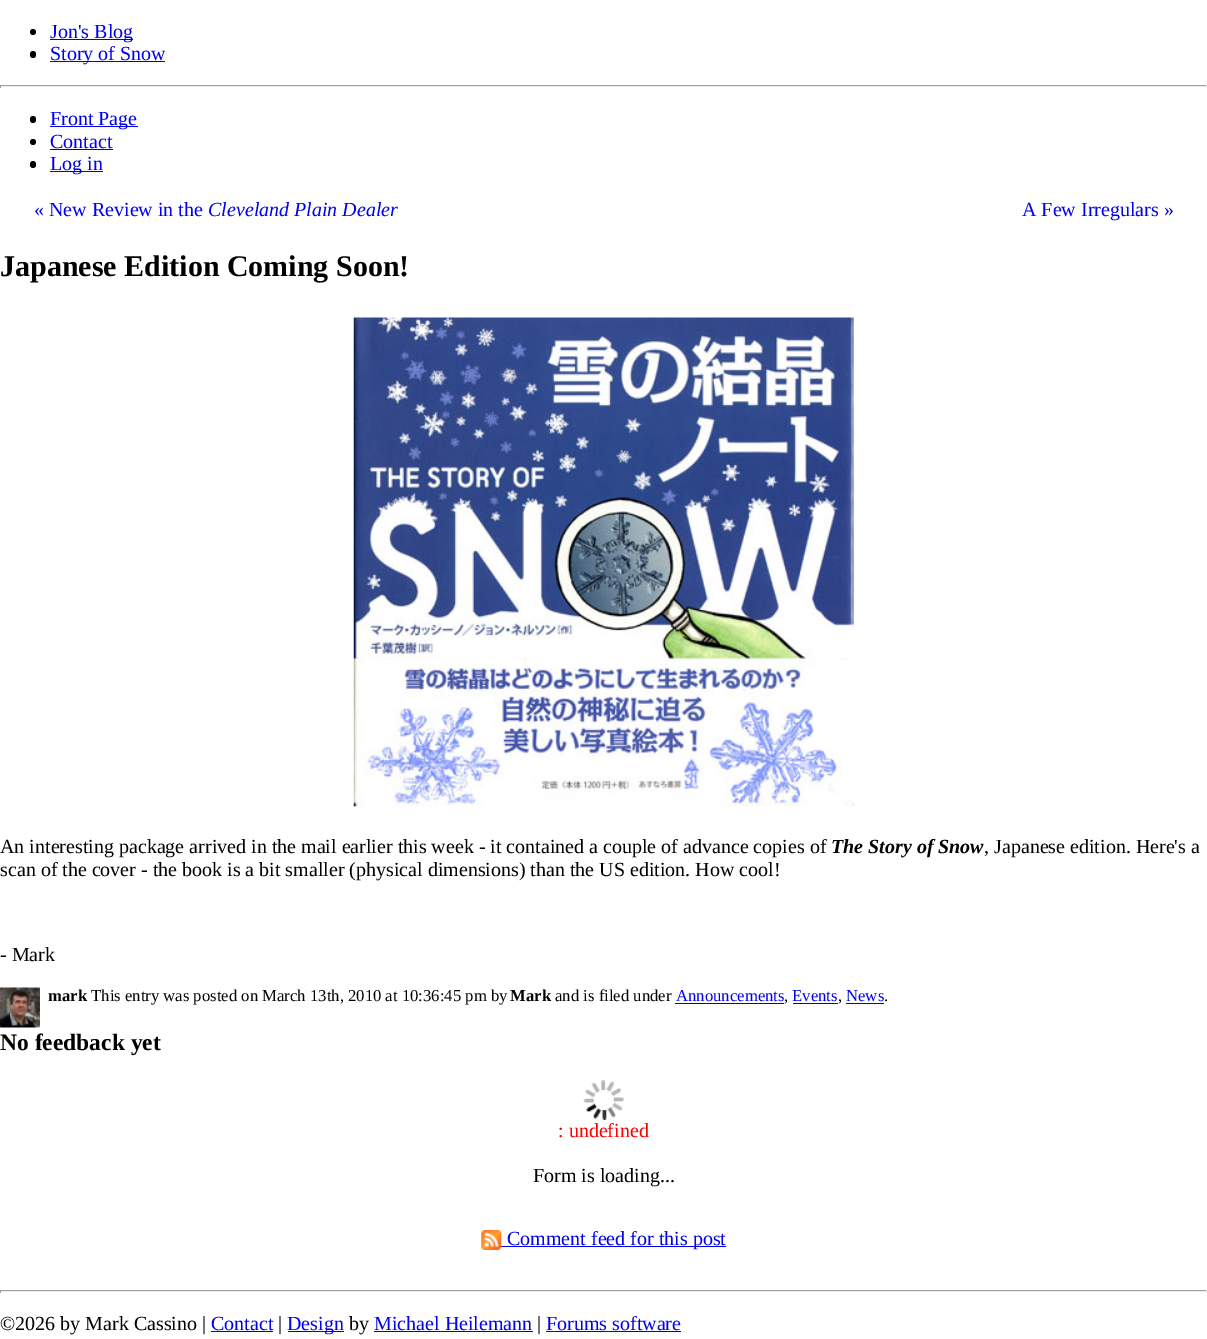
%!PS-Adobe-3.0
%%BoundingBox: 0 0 1207 1339
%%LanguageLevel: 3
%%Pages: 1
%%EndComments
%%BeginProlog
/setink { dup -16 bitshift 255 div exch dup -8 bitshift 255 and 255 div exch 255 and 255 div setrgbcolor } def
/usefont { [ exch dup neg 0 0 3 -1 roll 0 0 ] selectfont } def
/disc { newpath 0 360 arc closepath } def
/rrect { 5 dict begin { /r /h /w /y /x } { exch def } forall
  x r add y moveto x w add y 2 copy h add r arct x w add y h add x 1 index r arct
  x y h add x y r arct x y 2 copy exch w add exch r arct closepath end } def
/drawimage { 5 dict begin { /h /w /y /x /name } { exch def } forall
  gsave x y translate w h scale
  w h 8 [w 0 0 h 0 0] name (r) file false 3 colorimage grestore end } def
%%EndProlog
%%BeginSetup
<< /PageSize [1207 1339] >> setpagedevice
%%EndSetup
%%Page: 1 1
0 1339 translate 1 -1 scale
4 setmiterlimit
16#FFFFFF setink
0 0 1207 1339 rectfill
16#000000 setink
33 32 3 disc fill
16#0000EE setink
50 39 83 1 rectfill
/LiberationSerif-Regular 20 usefont
50 38 moveto (Jon's Blog) show
16#000000 setink
30 51 6 7 3 rrect fill
16#0000EE setink
50 61 115 1 rectfill
50 60 moveto (Story of Snow) show
[
    [0 85 1207 1 16#9F9F9F]
    [1206 85 1 3 16#EEEEEE]
    [0 86 1207 1 16#EEEEEE]
    [0 85 1 3 16#9F9F9F]
] { aload pop setink rectfill } forall
16#000000 setink
30 116 6 7 3 rrect fill
16#0000EE setink
50 126 88 1 rectfill
50 125 moveto (Front Page) show
16#000000 setink
33 142 3 disc fill
16#0000EE setink
50 148 moveto (Contact) show
50 149 63 1 rectfill
16#000000 setink
30 161 6 7 3 rrect fill
16#0000EE setink
50 171 53 1 rectfill
50 170 moveto (Log in) show
34 216 moveto (« New Review in the) show
/LiberationSerif-Italic 20 usefont
208 216 moveto (Cleveland Plain Dealer) show
/LiberationSerif-Regular 20 usefont
1022 216 moveto (A Few Irregulars ») show
/LiberationSerif-Bold 30 usefont
16#000000 setink
0 276 moveto (Japanese Edition Coming Soon!) show
(img1.raw) 353 317 501 490 drawimage
/LiberationSerif-Regular 20 usefont
0 853 moveto (An interesting package arrived in the mail earlier this week - it contained a couple of advance copies of) show
/LiberationSerif-BoldItalic 20 usefont
831 853 moveto (The Story of Snow) show
/LiberationSerif-Regular 20 usefont
[
    [(, Japanese edition. Here's a) 984 853]
    [(scan of the cover - the book is a bit smaller \(physical dimensions\) than the US edition. How cool!) 0 876]
    [(- Mark) 0 961]
] { aload pop moveto show } forall
(img2.raw) 0 987 40 41 drawimage
/LiberationSerif-Bold 16.7 usefont
48 1001 moveto (mark) show
/LiberationSerif-Regular 16.7 usefont
91 1001 moveto (This entry was posted on March 13th, 2010 at 10:36:45 pm by) show
/LiberationSerif-Bold 16.7 usefont
510 1001 moveto (Mark) show
/LiberationSerif-Regular 16.7 usefont
555 1001 moveto (and is filed under) show
16#0000EE setink
676 1001 moveto (Announcements) show
675 1003 109 1 rectfill
16#000000 setink
784 1001 moveto (,) show
16#0000EE setink
792 1001 moveto (Events) show
793 1003 45 1 rectfill
16#000000 setink
838 1001 moveto (,) show
16#0000EE setink
846 1001 moveto (News) show
846 1003 38 1 rectfill
16#000000 setink
884 1001 moveto (.) show
/LiberationSerif-Bold 23.5 usefont
0 1050 moveto (No feedback yet) show
(img3.raw) 583 1080 41 40 drawimage
/LiberationSerif-Regular 20 usefont
16#FF0000 setink
558 1137 moveto (: undefined) show
16#000000 setink
533 1182 moveto (Form is loading...) show
16#0000EE setink
501 1246 225 1 rectfill
(img4.raw) 481 1230 21 20 drawimage
507 1245 moveto (Comment feed for this post) show
[
    [0 1290 1207 1 16#9F9F9F]
    [1206 1290 1 3 16#EEEEEE]
    [0 1291 1207 1 16#EEEEEE]
    [0 1290 1 3 16#9F9F9F]
] { aload pop setink rectfill } forall
16#000000 setink
0 1330 moveto (©2026 by Mark Cassino |) show
16#0000EE setink
211 1330 moveto (Contact) show
211 1331 62 1 rectfill
16#000000 setink
278 1330 moveto (|) show
16#0000EE setink
288 1331 56 1 rectfill
287 1330 moveto (Design) show
16#000000 setink
349 1330 moveto (by) show
16#0000EE setink
374 1330 moveto (Michael Heilemann) show
374 1331 159 1 rectfill
16#000000 setink
537 1330 moveto (|) show
16#0000EE setink
546 1330 moveto (Forums software) show
546 1331 135 1 rectfill
showpage
%%EOF
